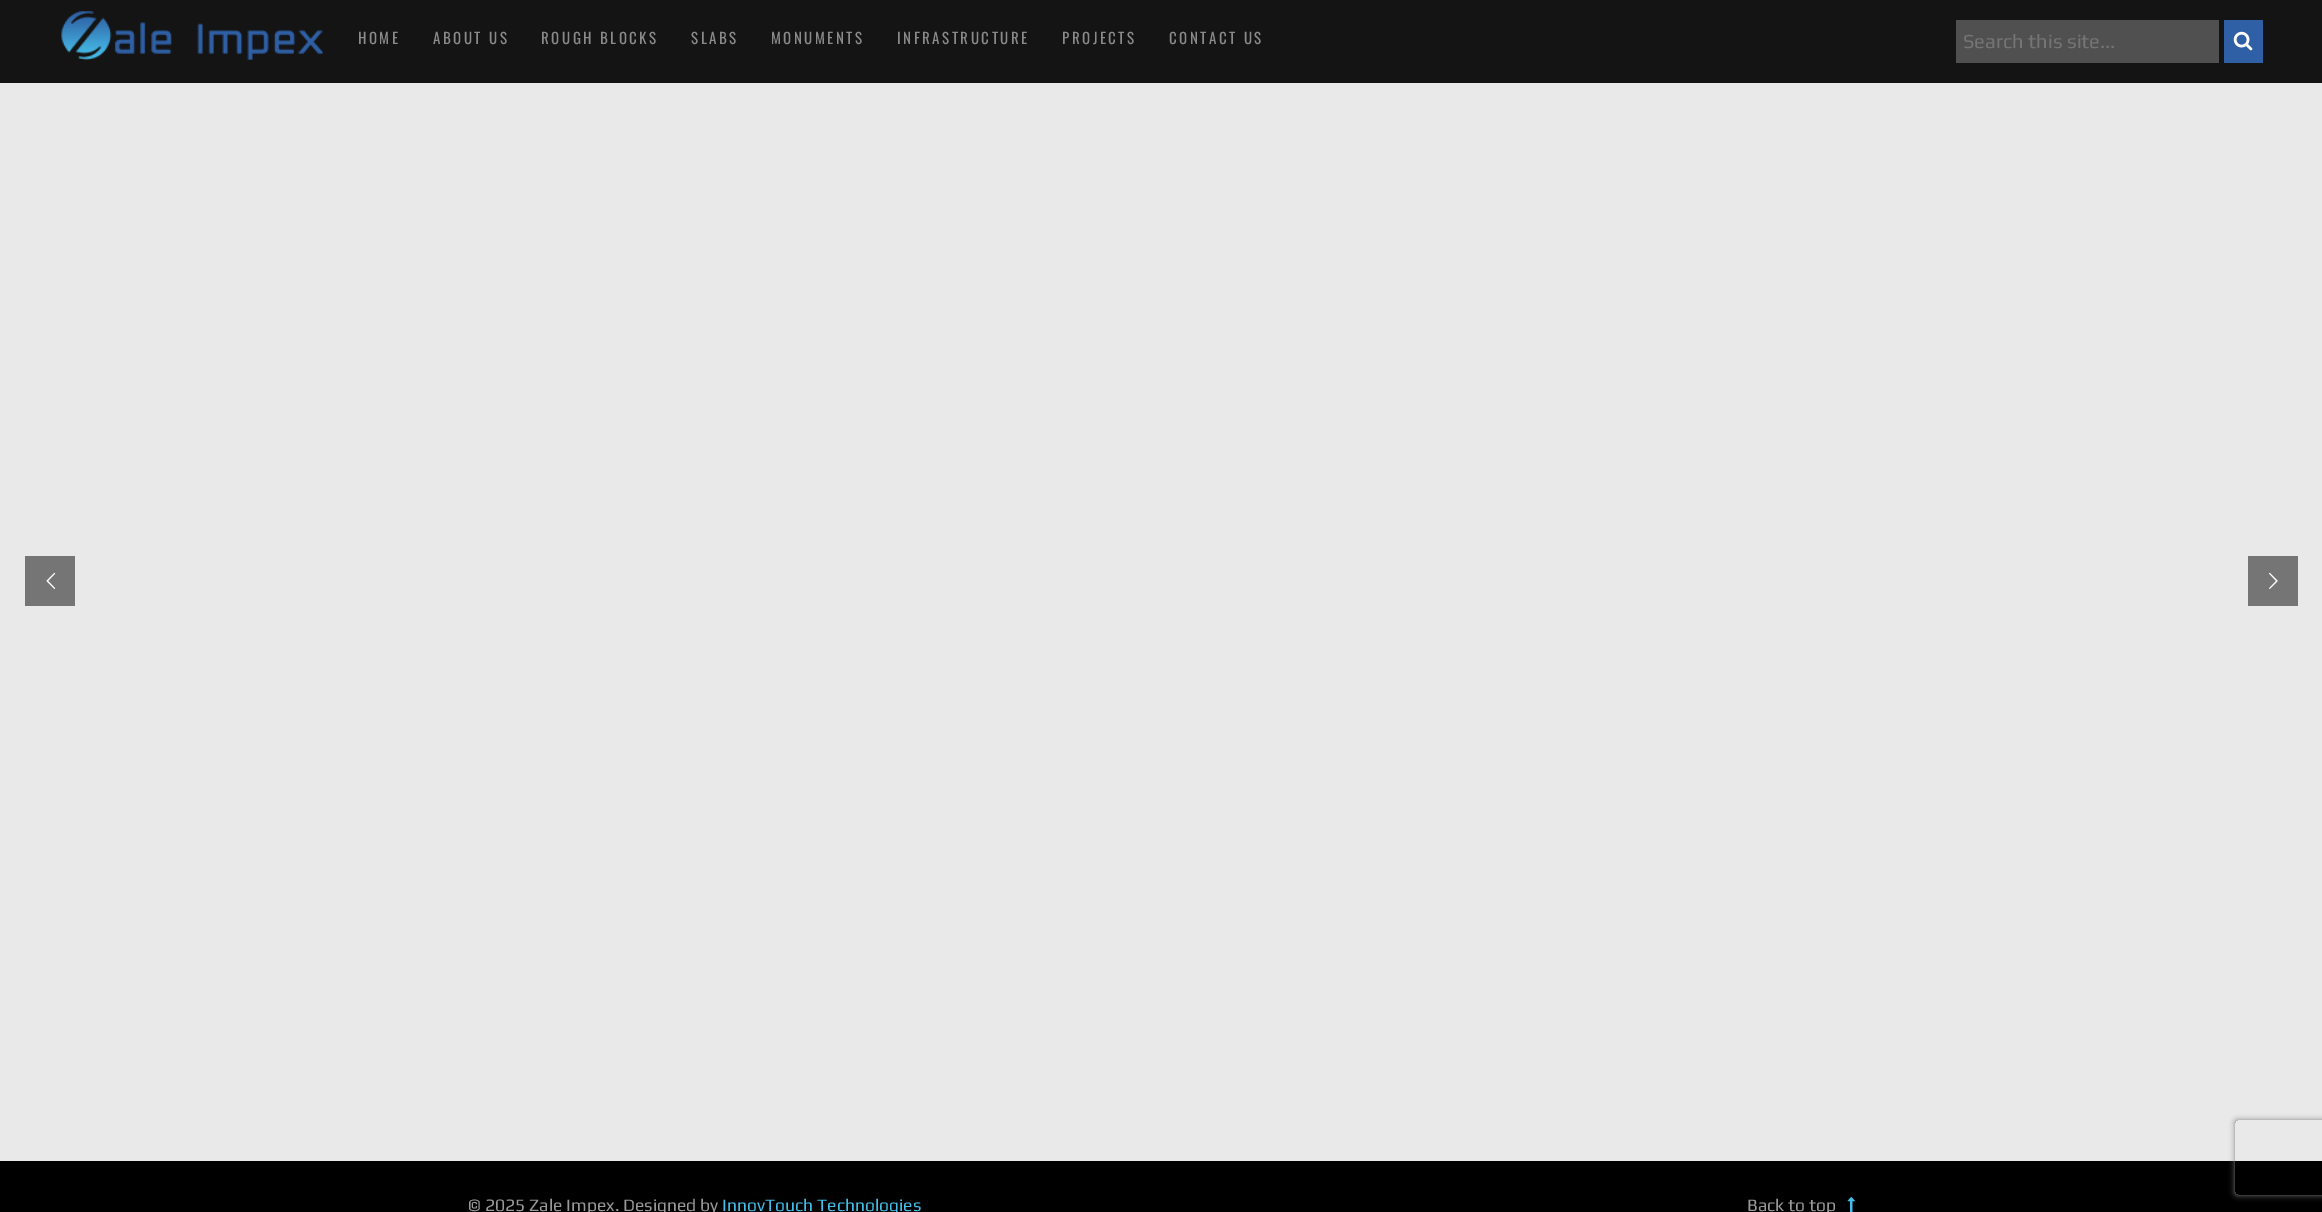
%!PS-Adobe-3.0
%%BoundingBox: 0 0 2322 1212
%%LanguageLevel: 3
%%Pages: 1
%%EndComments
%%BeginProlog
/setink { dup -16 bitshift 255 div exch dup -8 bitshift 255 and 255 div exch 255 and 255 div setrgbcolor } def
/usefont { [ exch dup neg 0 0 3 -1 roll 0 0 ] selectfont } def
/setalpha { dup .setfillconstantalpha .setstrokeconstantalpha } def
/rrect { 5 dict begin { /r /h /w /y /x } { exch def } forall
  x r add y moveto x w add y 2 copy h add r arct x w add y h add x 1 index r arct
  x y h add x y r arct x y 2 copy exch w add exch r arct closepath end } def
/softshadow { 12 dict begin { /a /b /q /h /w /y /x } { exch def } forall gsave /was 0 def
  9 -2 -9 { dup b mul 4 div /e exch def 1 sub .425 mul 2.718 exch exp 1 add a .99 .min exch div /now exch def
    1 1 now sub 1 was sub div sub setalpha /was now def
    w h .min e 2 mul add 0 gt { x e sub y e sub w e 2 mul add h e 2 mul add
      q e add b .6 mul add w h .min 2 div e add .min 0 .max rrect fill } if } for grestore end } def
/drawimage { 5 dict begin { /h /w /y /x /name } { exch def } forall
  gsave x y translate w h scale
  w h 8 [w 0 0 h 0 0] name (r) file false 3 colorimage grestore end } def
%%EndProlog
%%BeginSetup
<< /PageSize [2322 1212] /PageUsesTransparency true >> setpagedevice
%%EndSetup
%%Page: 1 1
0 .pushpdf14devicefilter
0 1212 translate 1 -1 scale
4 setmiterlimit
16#000000 setink
0 0 2322 1212 rectfill
16#141414 setink
0 0 2322 83 rectfill
(img1.raw) 61 11 262 49 drawimage
/Oswald-Regular 15 usefont
16#8A8A8A setink
358 44 moveto 2.5 0 (HOME) ashow
433 44 moveto 2.5 0 (ABOUT US) ashow
541 44 moveto 2.5 0 (ROUGH BLOCKS) ashow
691 44 moveto 2.5 0 (SLABS) ashow
771 44 moveto 2.5 0 (MONUMENTS) ashow
897 44 moveto 2.5 0 (INFRASTRUCTURE) ashow
1062 44 moveto 2.5 0 (PROJECTS) ashow
1169 44 moveto 2.5 0 (CONTACT US) ashow
16#515050 setink
1956 20 263 43 rectfill
/Play-Regular 20 usefont
16#757575 setink
1963 48 moveto (Search this site...) show
16#2F60A5 setink
2224 20 39 43 rectfill
(img2.raw) 2233 31 20 20 drawimage
16#E9E9E9 setink
0 83 2322 1078 rectfill
16#757575 setink
25 556 50 50 rectfill
(img3.raw) 46 572 10 17 drawimage
2248 556 50 50 rectfill
(img4.raw) 2269 572 9 17 drawimage
/Play-Regular 17.5 usefont
16#999999 setink
468 1211 moveto (© 2025 Zale Impex. Designed by) show
16#46BDE8 setink
722 1211 moveto (InnovTouch Technologies) show
16#999999 setink
1747 1211 moveto (Back to top) show
(img5.raw) 1847 1196 8 16 drawimage
gsave
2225 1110 moveto 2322 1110 lineto 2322 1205 lineto 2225 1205 lineto closepath 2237.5 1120 moveto 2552.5 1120 lineto 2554 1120 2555 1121 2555 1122.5 curveto 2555 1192.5 lineto 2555 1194 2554 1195 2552.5 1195 curveto 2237.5 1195 lineto 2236 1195 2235 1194 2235 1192.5 curveto 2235 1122.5 lineto 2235 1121 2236 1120 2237.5 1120 curveto closepath eoclip newpath
16#808080 setink
2235 1120 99 75 2.5 3 1 softshadow
grestore
.poppdf14devicefilter showpage
%%EOF
